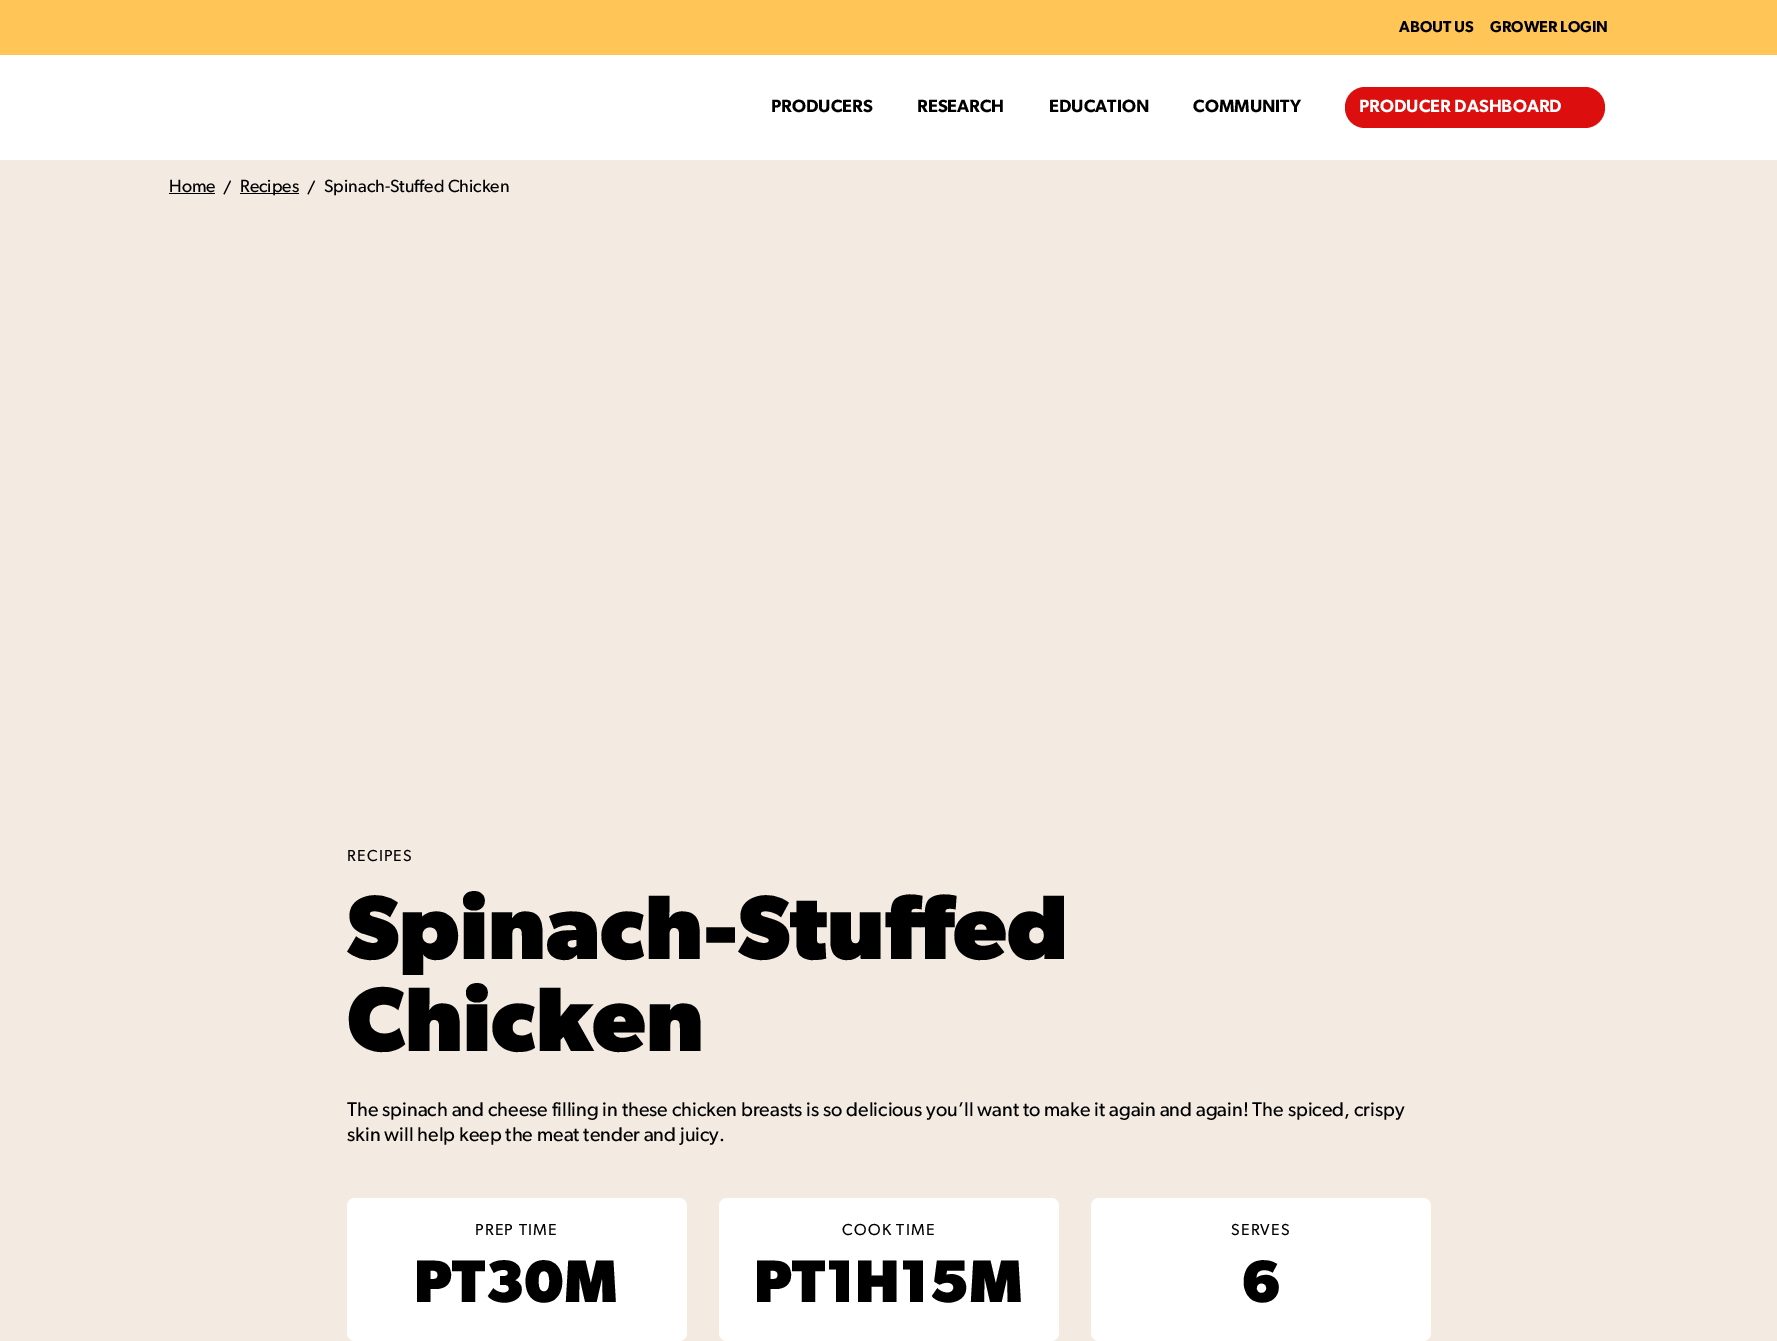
%!PS-Adobe-3.0
%%BoundingBox: 0 0 1777 1341
%%LanguageLevel: 3
%%Pages: 1
%%EndComments
%%BeginProlog
/setink { dup -16 bitshift 255 div exch dup -8 bitshift 255 and 255 div exch 255 and 255 div setrgbcolor } def
/usefont { [ exch dup neg 0 0 3 -1 roll 0 0 ] selectfont } def
/rrect { 5 dict begin { /r /h /w /y /x } { exch def } forall
  x r add y moveto x w add y 2 copy h add r arct x w add y h add x 1 index r arct
  x y h add x y r arct x y 2 copy exch w add exch r arct closepath end } def
%%EndProlog
%%BeginSetup
<< /PageSize [1777 1341] >> setpagedevice
%%EndSetup
%%Page: 1 1
0 1341 translate 1 -1 scale
4 setmiterlimit
16#F3EBE2 setink
0 0 1777 1341 rectfill
16#FFC657 setink
0 0 1777 55 rectfill
/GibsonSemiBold-SemiBold 15.75 usefont
16#000000 setink
1399 32 moveto (ABOUT US) show
1490 32 moveto (GROWER LOGIN) show
16#FFFFFF setink
0 55 1777 105 rectfill
/GibsonSemiBold-SemiBold 17.75 usefont
16#000000 setink
[
    [(PRODUCERS) 771 112]
    [(RESEARCH) 917 112]
    [(EDUCATION) 1049 112]
    [(COMMUNITY) 1193 112]
] { aload pop moveto show } forall
16#DD0E0E setink
1345 87 260 41 20 rrect fill
16#FFFFFF setink
1359 112 moveto (PRODUCER DASHBOARD) show
/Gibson-Regular 17.75 usefont
16#000000 setink
169 192 moveto (Home) show
169 193 46 1 rectfill
231 181 moveto 224.5 194.5 lineto 223.5 194 lineto 230 180.5 lineto closepath fill
240 193 59 1 rectfill
240 192 moveto (Recipes) show
315 181 moveto 308.5 194.5 lineto 307.5 194 lineto 314 180.5 lineto closepath fill
324 192 moveto (Spinach-Stuffed Chicken) show
/Gibson-Regular 16 usefont
347 861 moveto 1.25 0 (RECIPES) ashow
/Gibson-Bold 91.75 usefont
347 959 moveto (Spinach-Stuffed) show
347 1051 moveto (Chicken) show
/Gibson-Regular 19.82 usefont
347 1116 moveto (The spinach and cheese filling in these chicken breasts is so delicious you’ll want to make it again and again! The spiced, crispy) show
347 1141 moveto (skin will help keep the meat tender and juicy.) show
16#FFFFFF setink
347 1198 340 143 8 rrect fill
/Gibson-Regular 16 usefont
16#000000 setink
475 1235 moveto 1.25 0 (PREP TIME) ashow
/Gibson-Bold 60 usefont
414 1302 moveto (PT30M) show
16#FFFFFF setink
719 1198 340 143 8 rrect fill
/Gibson-Regular 16 usefont
16#000000 setink
842 1235 moveto 1.25 0 (COOK TIME) ashow
/Gibson-Bold 60 usefont
754 1302 moveto (PT1H15M) show
16#FFFFFF setink
1091 1198 340 143 8 rrect fill
/Gibson-Regular 16 usefont
16#000000 setink
1231 1235 moveto 1.25 0 (SERVES) ashow
/Gibson-Bold 60 usefont
1241 1302 moveto (6) show
showpage
%%EOF
